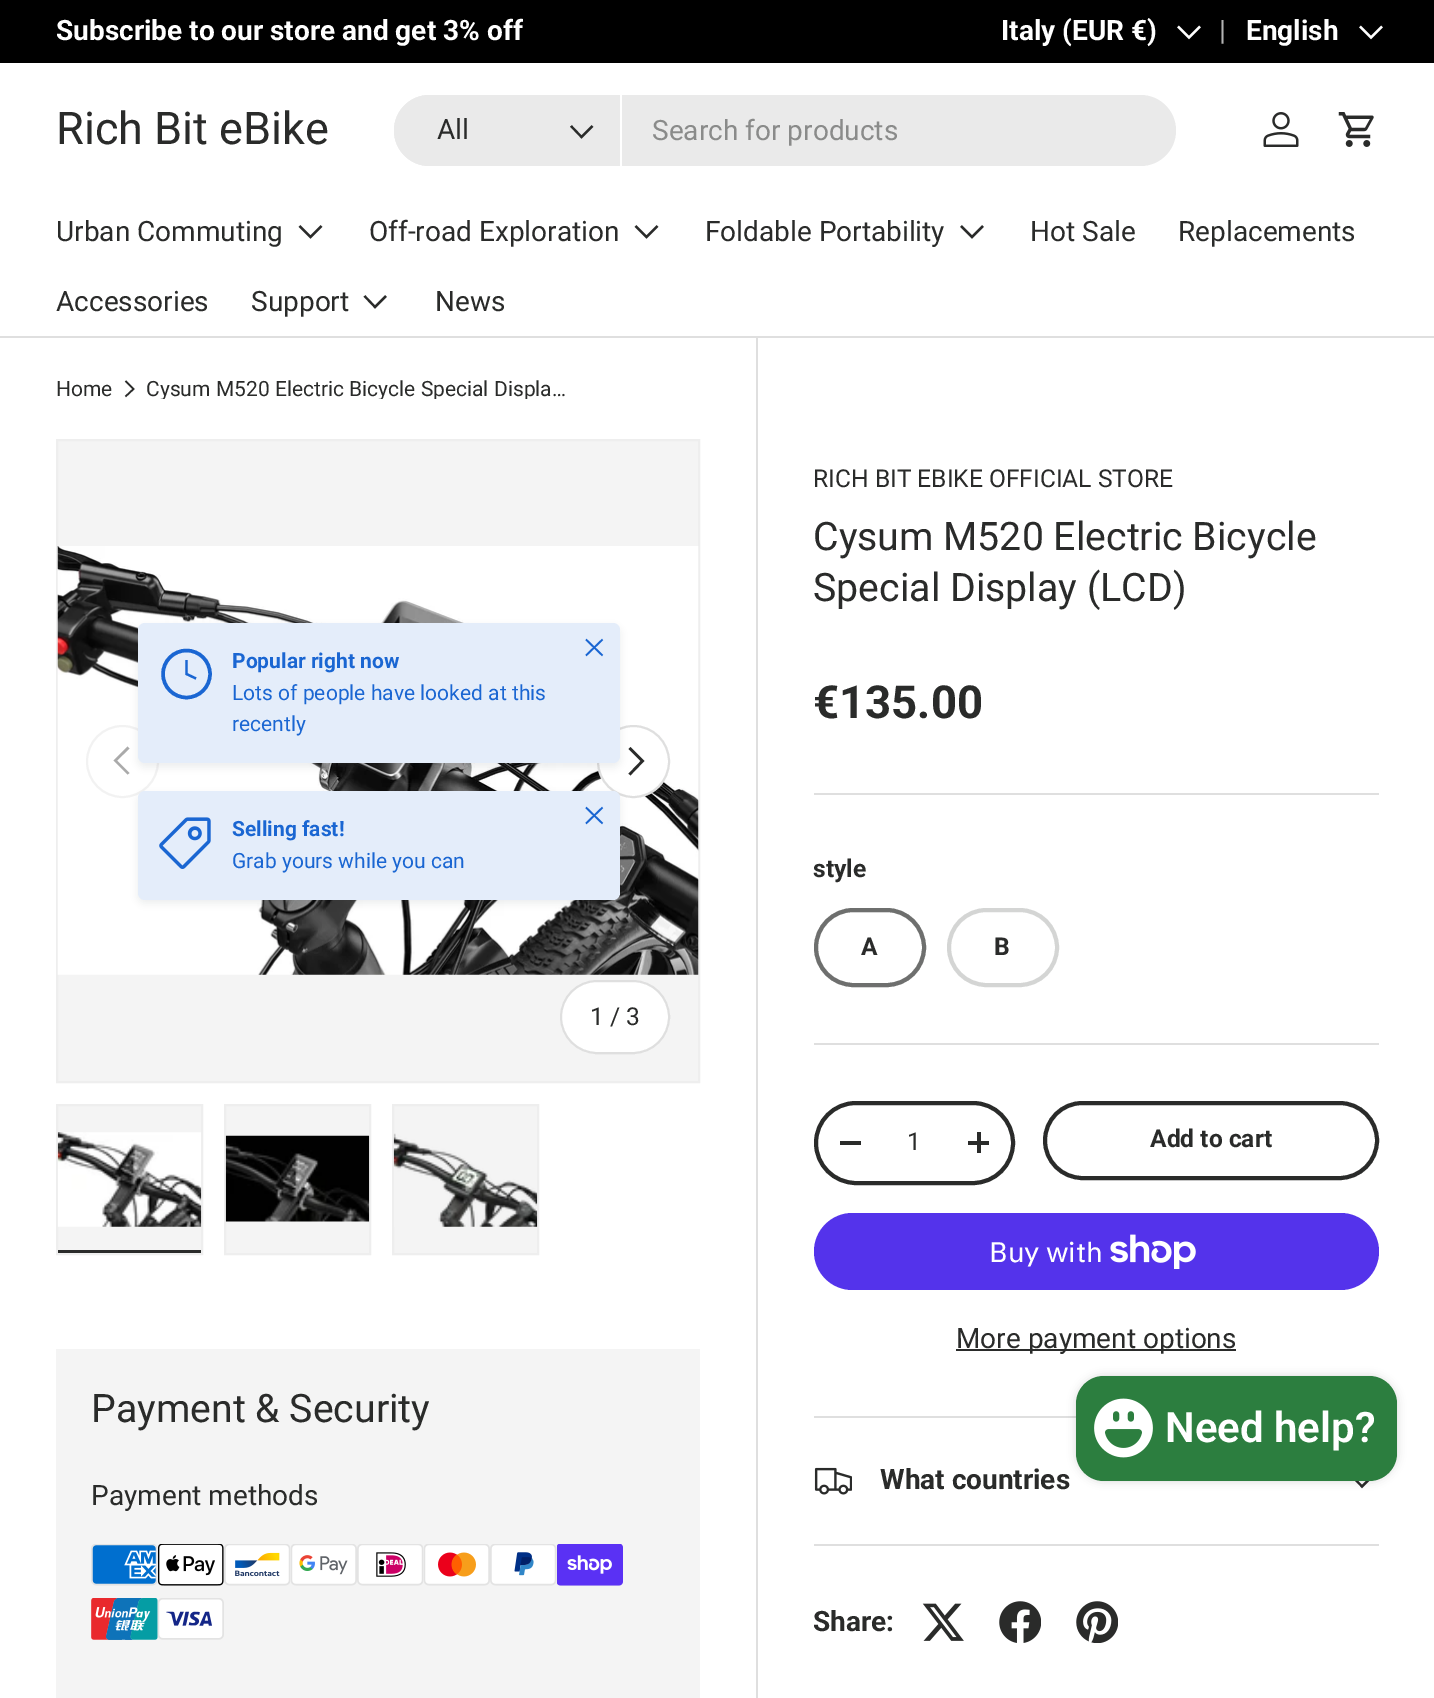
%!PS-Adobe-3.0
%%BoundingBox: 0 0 1434 1698
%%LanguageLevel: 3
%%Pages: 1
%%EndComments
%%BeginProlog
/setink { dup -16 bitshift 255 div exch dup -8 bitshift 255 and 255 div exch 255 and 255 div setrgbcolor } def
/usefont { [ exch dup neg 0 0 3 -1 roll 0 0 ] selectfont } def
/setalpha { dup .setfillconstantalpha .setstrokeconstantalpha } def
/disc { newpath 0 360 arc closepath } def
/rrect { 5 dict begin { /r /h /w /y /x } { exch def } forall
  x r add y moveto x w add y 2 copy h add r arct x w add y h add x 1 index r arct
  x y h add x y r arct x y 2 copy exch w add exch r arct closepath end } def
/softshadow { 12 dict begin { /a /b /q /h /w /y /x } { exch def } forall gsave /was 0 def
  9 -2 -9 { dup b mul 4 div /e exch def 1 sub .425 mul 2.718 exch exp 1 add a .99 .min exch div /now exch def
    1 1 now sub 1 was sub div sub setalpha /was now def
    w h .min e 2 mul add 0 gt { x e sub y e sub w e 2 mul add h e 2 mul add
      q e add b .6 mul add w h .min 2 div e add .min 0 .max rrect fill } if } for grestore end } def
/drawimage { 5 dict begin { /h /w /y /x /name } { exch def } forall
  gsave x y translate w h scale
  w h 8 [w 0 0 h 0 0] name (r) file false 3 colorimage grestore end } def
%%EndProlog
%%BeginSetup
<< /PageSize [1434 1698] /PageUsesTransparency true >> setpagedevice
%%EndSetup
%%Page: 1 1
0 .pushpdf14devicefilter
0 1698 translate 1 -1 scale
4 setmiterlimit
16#FFFFFF setink
0 0 1434 1698 rectfill
16#000000 setink
0 0 1434 63 rectfill
/Roboto-Bold 28 usefont
16#FFFFFF setink
56 40 moveto (Subscribe to our store and get 3% off) show
1001 40 moveto (Italy \(EUR €\)) show
2.2 setlinewidth
1200 26.5 moveto 1189 37.5 lineto 1178 26.5 lineto stroke
/Roboto-Regular 28 usefont
16#B3B3B3 setink
1219 40 moveto (|) show
/Roboto-Bold 28 usefont
16#FFFFFF setink
1246 40 moveto (English) show
1382 26.5 moveto 1371 37.5 lineto 1360 26.5 lineto stroke
16#DFDFDF setink
0 336 1434 2 rectfill
/Roboto-Regular 45 usefont
16#2A2B2A setink
56 144 moveto (Rich Bit eBike) show
16#EAEAEA setink
394 95 782 71 35.5 rrect fill
429.5 95 moveto 621 95 lineto 621 166 lineto 429.5 166 lineto 410 166 394 150 394 130.5 curveto 394 111 410 95 429.5 95 curveto closepath fill
16#FFFFFF setink
620 95 2 71 rectfill
/Roboto-Regular 28 usefont
16#2A2B2A setink
437 139 moveto (All) show
592.5 126 moveto 581.5 137 lineto 571 126 lineto stroke
16#8A8B8A setink
652 140 moveto (Search for products) show
(img1.raw) 1263 112 36 35 drawimage
(img2.raw) 1338 112 36 35 drawimage
16#2A2B2A setink
56 241 moveto (Urban Commuting) show
321.5 226 moveto 310.5 237 lineto 299.5 226 lineto stroke
369 241 moveto (Off-road Exploration) show
657.5 226 moveto 646.5 237 lineto 635.5 226 lineto stroke
705 241 moveto (Foldable Portability) show
983 226 moveto 972 237 lineto 961 226 lineto stroke
[
    [(Hot Sale) 1030 241]
    [(Replacements) 1178 241]
    [(Accessories) 56 311]
    [(Support) 251 311]
] { aload pop moveto show } forall
386 296 moveto 375 307 lineto 364.5 296 lineto stroke
435 311 moveto (News) show
/Roboto-Regular 21 usefont
56 396 moveto (Home) show
1.6 setlinewidth
125.5 381 moveto 133.5 389 lineto 125.5 396.5 lineto stroke
gsave
145 378 420 21 rectclip
146 396 moveto (Cysum M520 Electric Bicycle Special Displa…) show
grestore
16#F4F4F4 setink
57 440 moveto 699 440 lineto 699 1082 lineto 57 1082 lineto closepath gsave fill grestore
16#EEEEEE setink
2 setlinewidth
stroke
(img3.raw) 57 546 642 429 drawimage
16#F2F2F2 setink
122.5 761.5 35.5 disc stroke
16#AAAAAA setink
113.5 760.5 moveto 127.5 746.5 lineto 129.5 748.5 lineto 117 760.5 lineto 129.5 773 lineto 127.5 774.5 lineto closepath fill
16#FFFFFF setink
633.5 761.5 36.5 disc fill
0.15 setalpha
16#2A2B2A setink
633.5 761.5 35.5 disc stroke
1 setalpha
2.6 setlinewidth
629.5 748 moveto 642.5 761 lineto 629.5 774.5 lineto stroke
16#212B36 setink
138 627 482 140 7 3.5 0.08 softshadow
16#E4EDFA setink
138 623 482 140 7 rrect fill
16#1A66D2 setink
3.5 setlinewidth
186.5 674 23.5 disc stroke
2.3 setlinewidth
186.5 660 moveto 186.5 674 lineto 196 678.5 lineto stroke
/Roboto-Bold 21 usefont
232 668 moveto (Popular right now) show
/Roboto-Regular 21 usefont
232 700 moveto (Lots of people have looked at this) show
232 731 moveto (recently) show
1.7 setlinewidth
1 setlinejoin
586 655.5 moveto 602.5 639.5 lineto 586 639.5 moveto 602.5 655.5 lineto stroke
16#212B36 setink
138 795 482 108 7 3.5 0.08 softshadow
16#E4EDFA setink
138 791 482 109 7 rrect fill
(img4.raw) 159 817 52 52 drawimage
/Roboto-Bold 21 usefont
16#1A66D2 setink
232 836 moveto (Selling fast!) show
/Roboto-Regular 21 usefont
232 868 moveto (Grab yours while you can) show
586 823.5 moveto 602.5 807.5 lineto 586 807.5 moveto 602.5 823.5 lineto stroke
16#FFFFFF setink
560 980 110 74 37 rrect fill
0.15 setalpha
16#2A2B2A setink
2 setlinewidth
0 setlinejoin
561 981 108 72 36 rrect stroke
/Roboto-Regular 24.6 usefont
1 setalpha
590 1025 moveto (1 / 3) show
16#F4F4F4 setink
58 1106 143 144 rectfill
16#EEEEEE setink
57 1105 145 149 rectstroke
(img5.raw) 57 1132 145 95 drawimage
16#2A2B2A setink
58 1250 143 3 rectfill
16#F4F4F4 setink
225 1105 moveto 370 1105 lineto 370 1254 lineto 225 1254 lineto closepath gsave fill grestore
16#EEEEEE setink
stroke
(img6.raw) 225 1135 145 87 drawimage
16#F4F4F4 setink
393 1105 moveto 538 1105 lineto 538 1254 lineto 393 1254 lineto closepath gsave fill grestore
16#EEEEEE setink
stroke
(img7.raw) 393 1133 145 94 drawimage
16#DFDFDF setink
756 338 2 1360 rectfill
16#2A2B2A setink
813 487 moveto (RICH BIT EBIKE OFFICIAL STORE) show
/Roboto-Regular 39.25 usefont
813 550 moveto (Cysum M520 Electric Bicycle) show
813 601 moveto (Special Display \(LCD\)) show
/Roboto-Bold 45.5 usefont
813 718 moveto (€135.00) show
16#DFDFDF setink
814 793 565 2 rectfill
/Roboto-Bold 24.6 usefont
16#2A2B2A setink
813 877 moveto (style) show
16#D4D5D4 setink
4 setlinewidth
816 910 108 75 37.5 rrect stroke
0.6 setalpha
16#2A2B2A setink
816 910 108 75 37.5 rrect stroke
1 setalpha
861 955 moveto (A) show
16#D4D5D4 setink
949 910 108 75 37.5 rrect stroke
16#2A2B2A setink
994 955 moveto (B) show
16#DFDFDF setink
814 1043 565 2 rectfill
16#2A2B2A setink
816 1103 197 80 40 rrect stroke
840 1141 21 4 rectfill
/Roboto-Regular 24.6 usefont
907 1150 moveto (1) show
968 1141 21 4 rectfill
977 1132 4 21 rectfill
1045 1103 332 75 37.5 rrect stroke
/Roboto-Bold 24.6 usefont
1150 1147 moveto (Add to cart) show
16#5433EB setink
814 1213 565 77 38.5 rrect fill
/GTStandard-Regular 28 usefont
16#FFFFFF setink
989 1262 moveto (Buy with) show
(img8.raw) 1110 1234 86 35 drawimage
16#2A2B2A setink
956 1349 280 2 rectfill
/Roboto-Regular 28 usefont
956 1348 moveto (More payment options) show
16#DFDFDF setink
814 1416 262 2 rectfill
814 1544 565 2 rectfill
(img9.raw) 814 1467 38 28 drawimage
/Roboto-Bold 28 usefont
16#2A2B2A setink
880 1489 moveto (What countries) show
2.2 setlinewidth
1373 1475.5 moveto 1362 1486.5 lineto 1351.5 1475.5 lineto stroke
813 1631 moveto (Share:) show
(img10.raw) 922 1603 42 38 drawimage
(img11.raw) 999 1601 42 42 drawimage
(img12.raw) 1076 1601 42 42 drawimage
16#F4F4F4 setink
56 1349 644 349 rectfill
/Roboto-Regular 39.25 usefont
16#2A2B2A setink
91 1422 moveto (Payment & Security) show
/Roboto-Regular 28 usefont
91 1505 moveto (Payment methods) show
(img13.raw) 91 1544 67 42 drawimage
(img14.raw) 158 1544 66 42 drawimage
(img15.raw) 224 1544 67 42 drawimage
(img16.raw) 291 1544 66 42 drawimage
(img17.raw) 357 1544 67 42 drawimage
(img18.raw) 424 1544 66 42 drawimage
(img19.raw) 490 1544 67 42 drawimage
(img20.raw) 557 1544 66 42 drawimage
(img21.raw) 91 1598 67 42 drawimage
(img22.raw) 158 1598 66 42 drawimage
16#000000 setink
1076 1376 321 105 28 4.5 0.15 softshadow
16#2C7E3F setink
1076 1376 321 105 28 rrect fill
(img23.raw) 1094 1398 59 60 drawimage
/Roboto-SemiBold 42 usefont
16#FFFFFF setink
1165 1442 moveto (Need help?) show
.poppdf14devicefilter showpage
%%EOF
